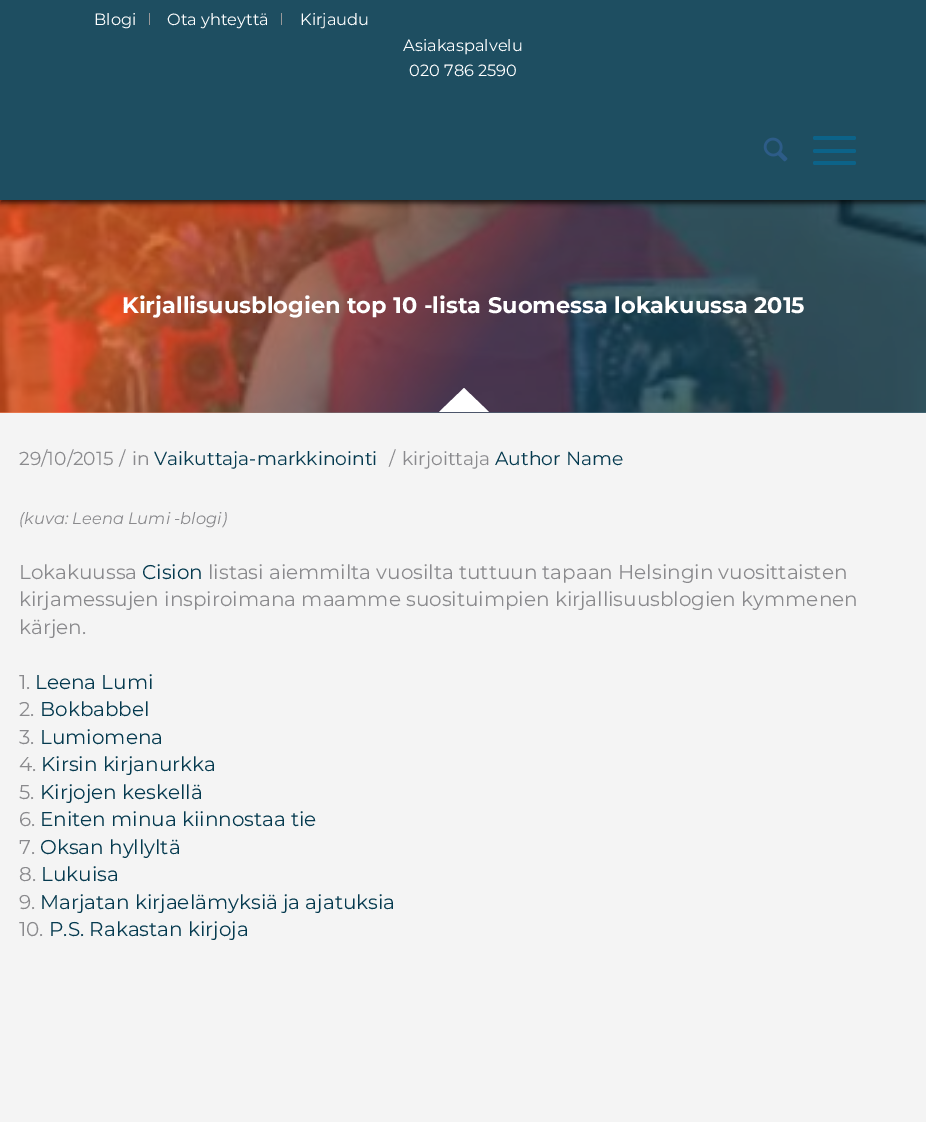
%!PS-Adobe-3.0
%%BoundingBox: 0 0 926 1122
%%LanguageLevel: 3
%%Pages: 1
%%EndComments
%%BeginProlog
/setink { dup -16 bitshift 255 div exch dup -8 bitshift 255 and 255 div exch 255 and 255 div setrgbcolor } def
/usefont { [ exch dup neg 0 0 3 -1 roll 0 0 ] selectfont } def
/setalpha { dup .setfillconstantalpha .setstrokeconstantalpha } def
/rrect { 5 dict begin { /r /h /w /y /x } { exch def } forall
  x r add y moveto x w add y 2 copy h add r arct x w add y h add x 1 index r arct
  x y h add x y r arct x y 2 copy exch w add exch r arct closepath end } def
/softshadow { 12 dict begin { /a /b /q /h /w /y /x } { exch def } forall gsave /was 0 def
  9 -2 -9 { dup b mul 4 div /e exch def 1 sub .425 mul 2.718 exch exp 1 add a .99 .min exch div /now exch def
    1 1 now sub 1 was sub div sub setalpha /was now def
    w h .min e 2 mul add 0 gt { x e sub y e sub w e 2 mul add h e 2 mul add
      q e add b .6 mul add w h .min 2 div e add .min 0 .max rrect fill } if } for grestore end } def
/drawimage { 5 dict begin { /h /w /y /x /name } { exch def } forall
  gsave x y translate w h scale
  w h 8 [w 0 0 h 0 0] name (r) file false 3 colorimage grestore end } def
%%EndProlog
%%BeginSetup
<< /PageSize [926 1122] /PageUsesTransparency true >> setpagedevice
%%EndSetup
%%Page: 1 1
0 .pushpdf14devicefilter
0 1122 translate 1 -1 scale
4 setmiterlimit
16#FFFFFF setink
0 0 926 1122 rectfill
(img2.raw) 0 200 926 213 drawimage
0.7 setalpha
gsave 0 200 moveto 926 200 lineto 926 413 lineto 0 413 lineto closepath clip newpath
<< /ShadingType 2 /ColorSpace /DeviceRGB /Coords [817 563 109 49] /Extend [true true] /Function << /FunctionType 3 /Domain [0 1] /Functions [<< /FunctionType 2 /Domain [0 1] /C0 [0.024 0.231 0.318] /C1 [0.024 0.231 0.318] /N 1 >> << /FunctionType 2 /Domain [0 1] /C0 [0.024 0.231 0.318] /C1 [0.945 0.361 0.137] /N 1 >> << /FunctionType 2 /Domain [0 1] /C0 [0.945 0.361 0.137] /C1 [0.945 0.361 0.137] /N 1 >>] /Bounds [0.45 0.81] /Encode [0 1 0 1 0 1] >> >> shfill grestore
1 setalpha
16#000000 setink
0 3 926 200 0 3 0.75 softshadow
16#1E4E61 setink
0 0 926 200 rectfill
16#989899 setink
149 13 1 12 rectfill
/Montserrat-Regular 16.25 usefont
16#FFFFFF setink
94 25 moveto (Blogi) show
16#989899 setink
281 13 1 12 rectfill
16#FFFFFF setink
[
    [(Ota yhteyttä) 167 25]
    [(Kirjaudu) 300 25]
    [(Asiakaspalvelu) 403 51]
    [(020 786 2590) 409 76]
] { aload pop moveto show } forall
(img1.raw) 763 137 25 25 drawimage
16#0C6389 setink
813 149 43 4 2 rrect fill
813 136 43 4 2 rrect fill
813 161 43 4 2 rrect fill
/Montserrat-Bold 22.5 usefont
16#FFFFFF setink
122 313 moveto (Kirjallisuusblogien top 10 -lista Suomessa lokakuussa 2015) show
489 412 moveto 439 412 lineto 464 388 lineto closepath fill
16#F4F4F4 setink
0 413 926 709 rectfill
/Montserrat-Regular 18.75 usefont
16#8A8A8D setink
[
    [(29/10/2015) 19 465]
    [(/) 119 465]
    [(in) 132 465]
] { aload pop moveto show } forall
16#053A4F setink
154 465 moveto (Vaikuttaja-markkinointi) show
16#8A8A8D setink
389 465 moveto (/) show
402 465 moveto (kirjoittaja) show
16#053A4F setink
495 465 moveto (Author Name) show
/Montserrat-Italic 16.25 usefont
16#8A8A8D setink
19 524 moveto (\(kuva: Leena Lumi -blogi\)) show
/Montserrat-Regular 20 usefont
19 579 moveto (Lokakuussa) show
16#053A4F setink
142 579 moveto (Cision) show
16#8A8A8D setink
[
    [(listasi aiemmilta vuosilta tuttuun tapaan Helsingin vuosittaisten) 208 579]
    [(kirjamessujen inspiroimana maamme suosituimpien kirjallisuusblogien kymmenen) 19 606]
    [(kärjen.) 19 634]
    [(1.) 19 689]
] { aload pop moveto show } forall
16#053A4F setink
35 689 moveto (Leena Lumi) show
16#8A8A8D setink
19 716 moveto (2.) show
16#053A4F setink
40 716 moveto (Bokbabbel) show
16#8A8A8D setink
19 744 moveto (3.) show
16#053A4F setink
40 744 moveto (Lumiomena) show
16#8A8A8D setink
19 771 moveto (4.) show
16#053A4F setink
41 771 moveto (Kirsin kirjanurkka) show
16#8A8A8D setink
19 799 moveto (5.) show
16#053A4F setink
40 799 moveto (Kirjojen keskellä) show
16#8A8A8D setink
19 826 moveto (6.) show
16#053A4F setink
40 826 moveto (Eniten minua kiinnostaa tie) show
16#8A8A8D setink
19 854 moveto (7.) show
16#053A4F setink
40 854 moveto (Oksan hyllyltä) show
16#8A8A8D setink
19 881 moveto (8.) show
16#053A4F setink
41 881 moveto (Lukuisa) show
16#8A8A8D setink
19 909 moveto (9.) show
16#053A4F setink
40 909 moveto (Marjatan kirjaelämyksiä ja ajatuksia) show
16#8A8A8D setink
19 936 moveto (10.) show
16#053A4F setink
49 936 moveto (P.S. Rakastan kirjoja) show
.poppdf14devicefilter showpage
%%EOF
